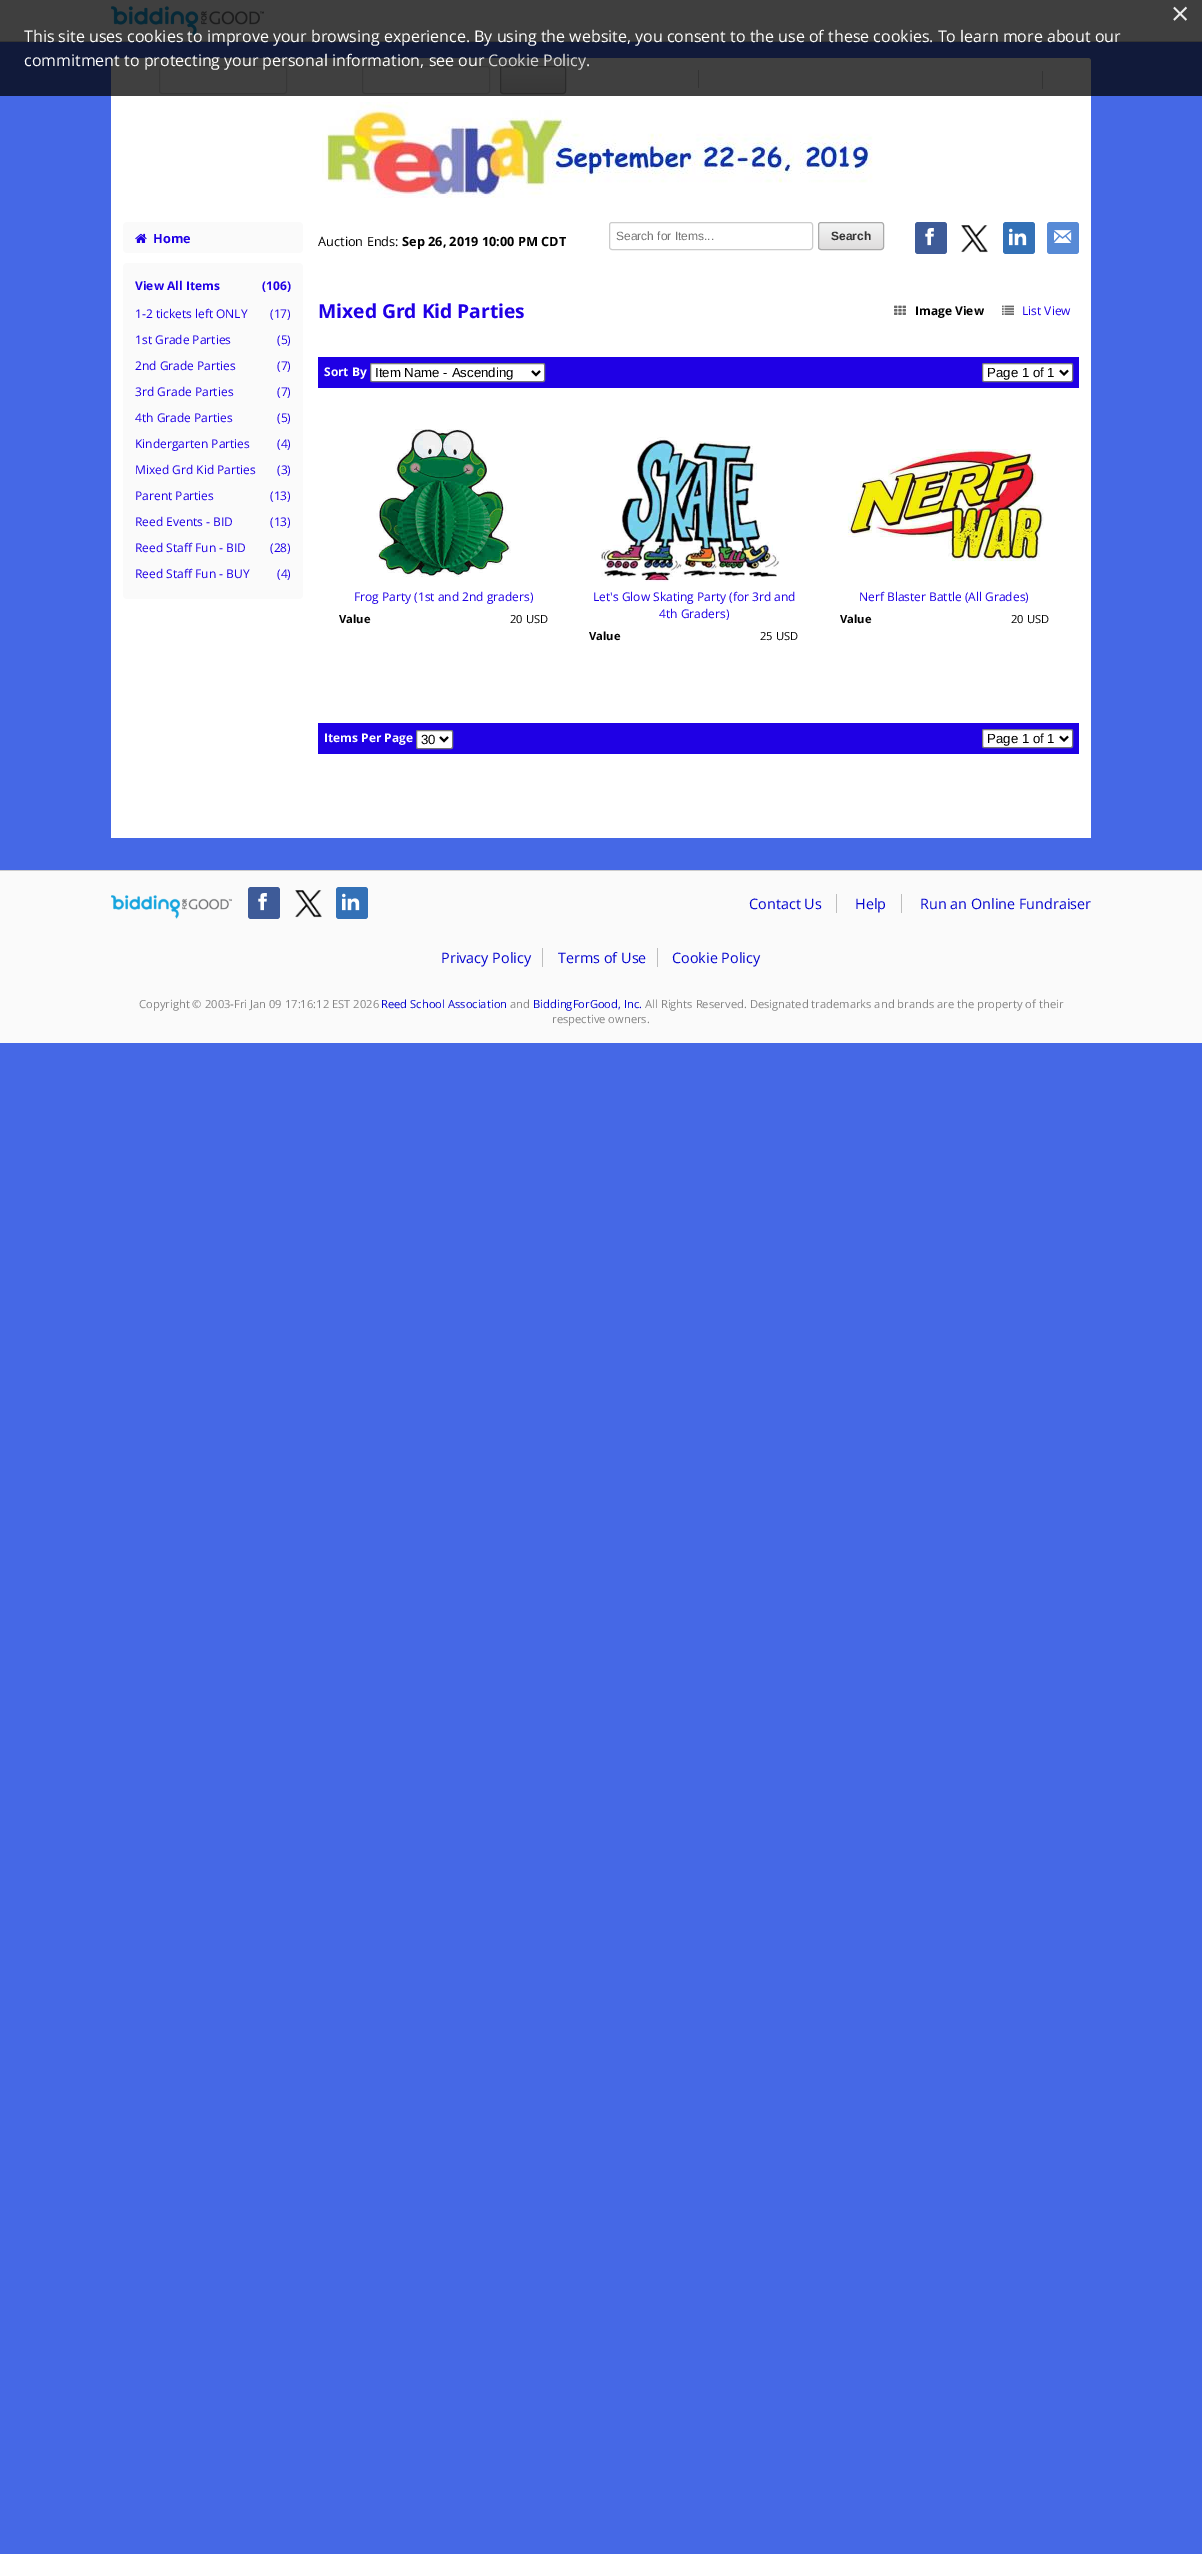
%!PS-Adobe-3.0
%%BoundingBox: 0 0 1202 2554
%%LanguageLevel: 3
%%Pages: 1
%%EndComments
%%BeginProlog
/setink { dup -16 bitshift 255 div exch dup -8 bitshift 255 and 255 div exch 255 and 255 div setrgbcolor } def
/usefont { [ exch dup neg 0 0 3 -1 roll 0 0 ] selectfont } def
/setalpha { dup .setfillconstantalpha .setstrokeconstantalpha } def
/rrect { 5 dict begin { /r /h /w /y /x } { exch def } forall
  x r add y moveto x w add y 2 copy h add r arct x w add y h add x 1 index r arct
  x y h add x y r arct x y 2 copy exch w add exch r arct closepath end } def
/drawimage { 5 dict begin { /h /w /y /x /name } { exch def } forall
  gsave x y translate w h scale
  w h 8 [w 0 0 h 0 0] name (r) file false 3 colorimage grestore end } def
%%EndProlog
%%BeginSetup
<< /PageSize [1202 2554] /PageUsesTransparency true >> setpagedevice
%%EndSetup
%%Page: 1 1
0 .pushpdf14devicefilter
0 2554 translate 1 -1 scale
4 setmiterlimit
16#4568E6 setink
0 0 1202 2554 rectfill
16#FAFAFA setink
0 0 1202 41 rectfill
16#CCCCCC setink
0 41 1202 1 rectfill
(img1.raw) 111 6 153 30 drawimage
16#FFFFFF setink
114 58 moveto 1088 58 lineto 1089.5 58 1091 59.5 1091 61 curveto 1091 102 lineto 111 102 lineto 111 61 lineto 111 59.5 112.5 58 114 58 curveto closepath fill
16#DDDDDD setink
159.5 66.5 127 27 2.5 rrect stroke
362.5 66.5 127 27 2.5 rrect stroke
gsave
500 66 66 28 3 rrect clip newpath
gsave 500 67 moveto 566 67 lineto 566 93 lineto 500 93 lineto closepath clip newpath
<< /ShadingType 2 /ColorSpace /DeviceRGB /Coords [533 67 533 93] /Extend [true true] /Function << /FunctionType 2 /Domain [0 1] /C0 [0.957 0.961 0.961] /C1 [0.875 0.867 0.867] /N 1 >> >> shfill grestore
grestore
16#AAAAAA setink
500.5 66.5 65 27 2.5 rrect stroke
[
    [698 70 1 18 16#CCCCCC]
    [1042 71 1 18 16#CCCCCC]
    [111 102 980 736 16#FFFFFF]
] { aload pop setink rectfill } forall
(img2.raw) 322 102 551 96 drawimage
0.75 setalpha
16#000000 setink
0 0 1202 96 rectfill
/OpenSans-Regular 32 usefont
1 setalpha
16#ECECEC setink
1171 25 moveto (×) show
/OpenSans-Regular 16 usefont
16#FFFFFF setink
24 42 moveto (This site uses cookies to improve your browsing experience. By using the website, you consent to the use of these cookies. To learn more about our) show
24 66 moveto (commitment to protecting your personal information, see our) show
16#D7D7D8 setink
488 66 moveto (Cookie Policy) show
16#FFFFFF setink
586 66 moveto (.) show
16#FAFAFA setink
123 222 180 31 4 rrect fill
(img3.raw) 135 233 12 10 drawimage
/OpenSans-Bold 12.75 usefont
16#1F00E5 setink
153 243 moveto (Home) show
16#FAFAFA setink
123 263 180 336 4 rrect fill
/OpenSans-Bold 12 usefont
16#1F00E5 setink
135 290 moveto (View All Items) show
262 290 moveto (\(106\)) show
/OpenSans-Regular 12 usefont
[
    [(1-2 tickets left ONLY) 135 318]
    [(\(17\)) 270 318]
    [(1st Grade Parties) 135 344]
    [(\(5\)) 277 344]
    [(2nd Grade Parties) 135 370]
    [(\(7\)) 277 370]
    [(3rd Grade Parties) 135 396]
    [(\(7\)) 277 396]
    [(4th Grade Parties) 135 422]
    [(\(5\)) 277 422]
    [(Kindergarten Parties) 135 448]
    [(\(4\)) 277 448]
    [(Mixed Grd Kid Parties) 135 474]
    [(\(3\)) 277 474]
    [(Parent Parties) 135 500]
    [(\(13\)) 270 500]
    [(Reed Events - BID) 135 526]
    [(\(13\)) 270 526]
    [(Reed Staff Fun - BID) 135 552]
    [(\(28\)) 270 552]
    [(Reed Staff Fun - BUY) 135 578]
    [(\(4\)) 277 578]
] { aload pop moveto show } forall
/OpenSans-Regular 12.75 usefont
16#000000 setink
318 246 moveto (Auction Ends:) show
/OpenSans-Bold 12.75 usefont
402 246 moveto (Sep 26, 2019 10:00 PM CDT) show
16#CCCCCC setink
609.5 222.5 203 27 2.5 rrect stroke
/LiberationSans-Regular 12 usefont
16#757575 setink
616 240 moveto (Search for Items...) show
gsave
818 222 66 28 3 rrect clip newpath
gsave 818 223 moveto 884 223 lineto 884 249 lineto 818 249 lineto closepath clip newpath
<< /ShadingType 2 /ColorSpace /DeviceRGB /Coords [851 223 851 249] /Extend [true true] /Function << /FunctionType 2 /Domain [0 1] /C0 [0.957 0.961 0.961] /C1 [0.875 0.867 0.867] /N 1 >> >> shfill grestore
grestore
16#AAAAAA setink
818.5 222.5 65 27 2.5 rrect stroke
/LiberationSans-Bold 12 usefont
16#333333 setink
831 240 moveto (Search) show
16#3E5B98 setink
915 222 32 32 3 rrect fill
(img4.raw) 925 228 9 18 drawimage
(img5.raw) 961 225 27 28 drawimage
16#3371B7 setink
1003 222 32 32 3 rrect fill
(img6.raw) 1009 228 18 18 drawimage
16#578AD6 setink
1047 222 32 32 3 rrect fill
(img7.raw) 1054 230 18 13 drawimage
/OpenSans-Bold 19.25 usefont
16#1F00E5 setink
318 318 moveto (Mixed Grd Kid Parties) show
(img8.raw) 894 305 12 10 drawimage
/OpenSans-Bold 12 usefont
16#000000 setink
915 315 moveto (Image View) show
(img9.raw) 1002 305 12 10 drawimage
/OpenSans-Regular 12 usefont
16#1F00E5 setink
1022 315 moveto (List View) show
318 357 761 31 rectfill
/OpenSans-Bold 12 usefont
16#FFFFFF setink
324 376 moveto (Sort By) show
370.5 363.5 174 18 1.5 rrect gsave fill grestore
16#767676 setink
stroke
16#000000 setink
2 setlinewidth
532 371 moveto 536 375 lineto 540 371 lineto stroke
/LiberationSans-Regular 13.25 usefont
375 377 moveto (Item Name - Ascending) show
16#FFFFFF setink
982.5 363.5 90 18 1.5 rrect gsave fill grestore
16#767676 setink
1 setlinewidth
stroke
16#000000 setink
2 setlinewidth
1060 370.5 moveto 1064 374.5 lineto 1068 370.5 lineto stroke
987 377 moveto (Page 1 of 1) show
(img10.raw) 376 429 135 148 drawimage
/OpenSans-Regular 12 usefont
16#1F00E5 setink
354 601 moveto (Frog Party \(1st and 2nd graders\)) show
/OpenSans-Bold 11.2 usefont
16#000000 setink
339 623 moveto (Value) show
/OpenSans-Regular 11.2 usefont
510 623 moveto (20 USD) show
(img11.raw) 601 437 179 145 drawimage
/OpenSans-Regular 12 usefont
16#1F00E5 setink
593 601 moveto (Let's Glow Skating Party \(for 3rd and) show
659 618 moveto (4th Graders\)) show
/OpenSans-Bold 11.2 usefont
16#000000 setink
589 640 moveto (Value) show
/OpenSans-Regular 11.2 usefont
760 640 moveto (25 USD) show
(img12.raw) 847 449 197 113 drawimage
/OpenSans-Regular 12 usefont
16#1F00E5 setink
859 601 moveto (Nerf Blaster Battle \(All Grades\)) show
/OpenSans-Bold 11.2 usefont
16#000000 setink
840 623 moveto (Value) show
/OpenSans-Regular 11.2 usefont
1011 623 moveto (20 USD) show
16#1F00E5 setink
318 723 761 31 rectfill
/OpenSans-Bold 12 usefont
16#FFFFFF setink
324 742 moveto (Items Per Page) show
416.5 730.5 36 18 1.5 rrect gsave fill grestore
16#767676 setink
1 setlinewidth
stroke
16#000000 setink
2 setlinewidth
440 737 moveto 444 741 lineto 448 737 lineto stroke
/LiberationSans-Regular 13.25 usefont
421 744 moveto (30) show
16#FFFFFF setink
982.5 729.5 90 18 1.5 rrect gsave fill grestore
16#767676 setink
1 setlinewidth
stroke
16#000000 setink
2 setlinewidth
1060 736.5 moveto 1064 740.5 lineto 1068 736.5 lineto stroke
987 743 moveto (Page 1 of 1) show
16#FAFAFA setink
0 871 1202 172 rectfill
16#CCCCCC setink
0 870 1202 1 rectfill
(img13.raw) 111 895 121 24 drawimage
16#3E5B98 setink
248 887 32 32 3 rrect fill
(img4.raw) 258 893 9 18 drawimage
(img14.raw) 295 890 27 28 drawimage
16#3371B7 setink
336 887 32 32 3 rrect fill
(img6.raw) 342 893 18 18 drawimage
16#BEBEBE setink
836 894 1 19 rectfill
/OpenSans-Regular 14.4 usefont
16#0505CE setink
749 909 moveto (Contact Us) show
16#BEBEBE setink
901 894 1 19 rectfill
16#0505CE setink
[
    [(Help) 855 909]
    [(Run an Online Fundraiser) 920 909]
    [(Privacy Policy) 441 963]
] { aload pop moveto show } forall
16#BEBEBE setink
542 948 1 19 rectfill
16#0505CE setink
558 963 moveto (Terms of Use) show
16#BEBEBE setink
657 948 1 19 rectfill
16#0505CE setink
672 963 moveto (Cookie Policy) show
/OpenSans-Regular 11.2 usefont
16#848484 setink
139 1008 moveto (Copyright © 2003-Fri Jan 09 17:16:12 EST 2026) show
16#0505CE setink
381 1008 moveto (Reed School Association) show
16#848484 setink
510 1008 moveto (and) show
16#0505CE setink
533 1008 moveto (BiddingForGood, Inc.) show
16#848484 setink
645 1008 moveto (All Rights Reserved. Designated trademarks and brands are the property of their) show
552 1023 moveto (respective owners.) show
.poppdf14devicefilter showpage
%%EOF
